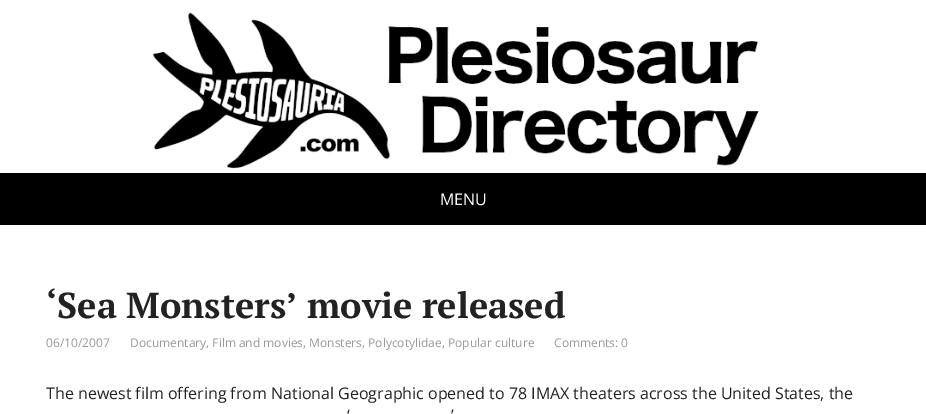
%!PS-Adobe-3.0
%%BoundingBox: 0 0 926 414
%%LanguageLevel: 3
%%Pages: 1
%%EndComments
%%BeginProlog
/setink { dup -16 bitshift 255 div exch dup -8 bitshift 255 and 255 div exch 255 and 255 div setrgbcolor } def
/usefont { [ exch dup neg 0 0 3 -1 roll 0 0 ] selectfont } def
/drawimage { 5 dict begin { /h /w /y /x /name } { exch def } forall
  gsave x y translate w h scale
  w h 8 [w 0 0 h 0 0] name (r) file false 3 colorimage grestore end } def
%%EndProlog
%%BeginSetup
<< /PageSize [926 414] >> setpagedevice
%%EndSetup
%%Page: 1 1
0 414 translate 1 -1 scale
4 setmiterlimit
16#FFFFFF setink
0 0 926 414 rectfill
(img1.raw) 152 12 607 157 drawimage
16#000000 setink
0 173 926 52 rectfill
/OpenSans-Regular 16 usefont
16#FFFFFF setink
440 205 moveto (MENU) show
/PTSerif-Bold 36 usefont
16#222222 setink
46 318 moveto (‘Sea Monsters’ movie released) show
/OpenSans-Regular 12 usefont
16#999999 setink
[
    [(06/10/2007) 46 347]
    [(Documentary, Film and movies, Monsters, Polycotylidae, Popular culture) 130 347]
    [(Comments: 0) 554 347]
] { aload pop moveto show } forall
/OpenSans-Regular 16 usefont
16#222222 setink
[
    [(The newest film offering from National Geographic opened to 78 IMAX theaters across the United States, the) 46 399]
    [(‘) 347 421]
    [(’) 451 421]
] { aload pop moveto show } forall
showpage
%%EOF
